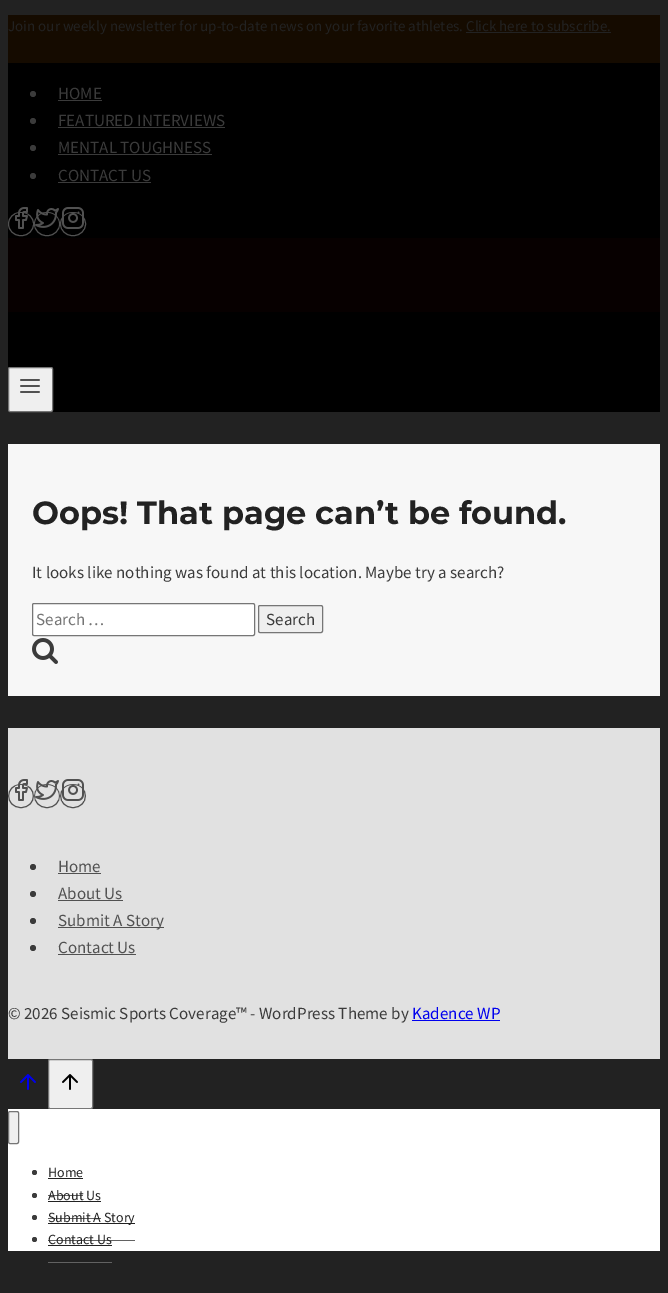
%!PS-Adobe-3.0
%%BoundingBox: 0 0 668 1293
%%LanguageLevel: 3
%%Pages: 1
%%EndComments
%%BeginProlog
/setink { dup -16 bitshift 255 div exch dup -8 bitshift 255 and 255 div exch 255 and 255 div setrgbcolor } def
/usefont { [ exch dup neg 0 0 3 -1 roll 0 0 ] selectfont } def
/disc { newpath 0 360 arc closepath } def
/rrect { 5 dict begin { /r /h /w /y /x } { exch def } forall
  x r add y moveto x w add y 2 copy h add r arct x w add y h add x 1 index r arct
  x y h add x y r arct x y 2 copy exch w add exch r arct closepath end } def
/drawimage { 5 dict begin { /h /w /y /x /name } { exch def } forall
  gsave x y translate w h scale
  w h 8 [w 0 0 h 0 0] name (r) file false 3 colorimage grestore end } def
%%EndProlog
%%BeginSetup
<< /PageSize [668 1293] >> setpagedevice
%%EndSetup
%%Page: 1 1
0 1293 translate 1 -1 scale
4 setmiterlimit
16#222222 setink
0 0 668 1293 rectfill
16#000000 setink
8 63 652 349 rectfill
16#150B00 setink
8 15 652 48 rectfill
/SourceSansPro-Regular 15 usefont
16#222222 setink
8 31 moveto (Join our weekly newsletter for up-to-date news on your favorite athletes. Click here to subscribe.) show
466 32 145 1 rectfill
16#3B3B3B setink
33 94 3 disc fill
/SourceSansPro-Regular 17 usefont
58 99 moveto (HOME) show
58 100 44 1 rectfill
33 121 3 disc fill
58 126 moveto (FEATURED INTERVIEWS) show
58 127 167 1 rectfill
33 148 3 disc fill
58 153 moveto (MENTAL TOUGHNESS) show
58 154 154 1 rectfill
33 176 3 disc fill
58 181 moveto (CONTACT US) show
58 182 93 1 rectfill
16#515151 setink
8.5 212.5 25 23 11.5 rrect stroke
(img1.raw) 15 207 13 22 drawimage
34.5 212.5 25 23 11.5 rrect stroke
(img2.raw) 35 208 24 20 drawimage
60.5 212.5 25 23 11.5 rrect stroke
(img3.raw) 62 207 22 22 drawimage
16#070000 setink
8 238 652 74 rectfill
16#EFEFEF setink
8.5 367.5 44 44 1.5 rrect gsave fill grestore
16#767676 setink
stroke
(img4.raw) 20 379 20 14 drawimage
16#F7F7F7 setink
8 444 652 252 rectfill
/Montserrat-Thin 32 usefont
16#222222 setink
32 524 moveto (Oops! That page can’t be found.) show
/SourceSansPro-Regular 17 usefont
16#3B3B3B setink
32 578 moveto (It looks like nothing was found at this location. Maybe try a search?) show
16#FFFFFF setink
32.5 603.5 222 32 1.5 rrect gsave fill grestore
16#767676 setink
stroke
16#757575 setink
36 625 moveto (Search …) show
16#EFEFEF setink
258.5 605.5 64 27 1.5 rrect gsave fill grestore
16#767676 setink
stroke
16#3B3B3B setink
266 625 moveto (Search) show
(img5.raw) 32 638 26 26 drawimage
16#E1E1E1 setink
8 728 652 331 rectfill
16#515151 setink
21 784.5 moveto 37.5 784.5 37.5 807.5 21 807.5 curveto 4.5 807.5 4.5 784.5 21 784.5 curveto closepath 47 784.5 moveto 63.5 784.5 63.5 807.5 47 807.5 curveto 30.5 807.5 30.5 784.5 47 784.5 curveto closepath stroke
(img6.raw) 15 779 13 22 drawimage
(img7.raw) 35 780 24 20 drawimage
73 784.5 moveto 89.5 784.5 89.5 807.5 73 807.5 curveto 56.5 807.5 56.5 784.5 73 784.5 curveto closepath stroke
(img8.raw) 62 779 22 22 drawimage
16#3B3B3B setink
33 867 3 disc fill
16#515151 setink
58 872 moveto (Home) show
58 873 43 1 rectfill
16#3B3B3B setink
33 894 3 disc fill
16#515151 setink
58 899 moveto (About Us) show
58 900 65 1 rectfill
16#3B3B3B setink
33 921 3 disc fill
16#515151 setink
58 927 106 1 rectfill
58 926 moveto (Submit A Story) show
16#3B3B3B setink
33 948 3 disc fill
16#515151 setink
58 953 moveto (Contact Us) show
58 954 78 1 rectfill
16#3B3B3B setink
8 1019 moveto (© 2026 Seismic Sports Coverage™ - WordPress Theme by) show
16#0000EE setink
412 1019 moveto (Kadence WP) show
412 1020 88 1 rectfill
(img9.raw) 20 1074 16 16 drawimage
16#EFEFEF setink
48.5 1059.5 44 49 1.5 rrect gsave fill grestore
16#767676 setink
stroke
(img10.raw) 62 1074 16 16 drawimage
16#FFFFFF setink
8 1109 652 142 rectfill
16#EFEFEF setink
8.5 1111.5 10 32 1.5 rrect gsave fill grestore
16#767676 setink
stroke
16#3B3B3B setink
34.5 1172.5 2.5 disc fill
/SourceSansPro-Regular 14 usefont
16#222222 setink
48 1177 moveto (Home) show
16#626262 setink
48 1195 35 1 rectfill
16#222222 setink
48 1178 35 1 rectfill
16#3B3B3B setink
34.5 1195.5 2.5 disc fill
16#222222 setink
48 1200 moveto (About Us) show
16#626262 setink
48 1218 53 1 rectfill
16#222222 setink
48 1201 53 1 rectfill
16#3B3B3B setink
34.5 1217.5 2.5 disc fill
16#222222 setink
48 1223 87 1 rectfill
48 1222 moveto (Submit A Story) show
16#626262 setink
48 1240 87 1 rectfill
16#3B3B3B setink
34.5 1239.5 2.5 disc fill
16#222222 setink
48 1244 moveto (Contact Us) show
16#626262 setink
48 1262 64 1 rectfill
16#222222 setink
48 1245 64 1 rectfill
showpage
%%EOF
